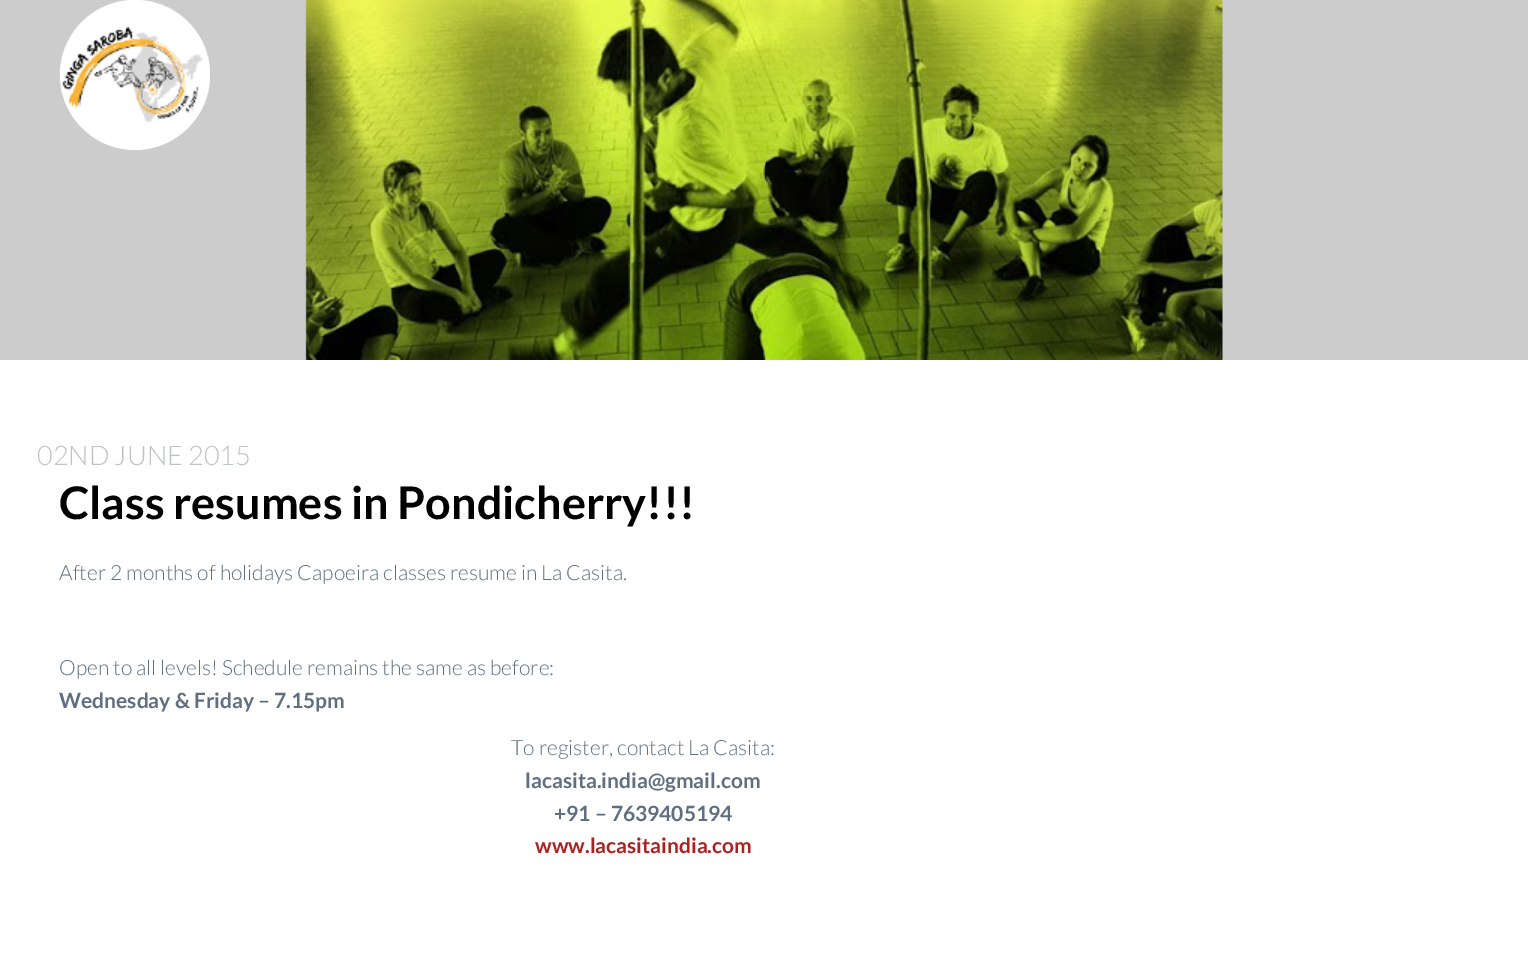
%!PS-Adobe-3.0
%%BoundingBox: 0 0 1528 965
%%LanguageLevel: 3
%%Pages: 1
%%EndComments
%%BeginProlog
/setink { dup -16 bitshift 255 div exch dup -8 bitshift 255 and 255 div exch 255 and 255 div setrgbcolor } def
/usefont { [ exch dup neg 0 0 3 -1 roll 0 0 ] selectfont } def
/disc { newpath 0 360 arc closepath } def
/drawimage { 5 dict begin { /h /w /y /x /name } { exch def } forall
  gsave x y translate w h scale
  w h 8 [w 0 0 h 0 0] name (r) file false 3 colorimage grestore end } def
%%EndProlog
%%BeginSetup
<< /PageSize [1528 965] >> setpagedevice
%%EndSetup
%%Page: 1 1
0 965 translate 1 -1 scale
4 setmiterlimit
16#FFFFFF setink
0 0 1528 965 rectfill
16#CCCCCC setink
0 0 1528 360 rectfill
(img1.raw) 305 0 918 360 drawimage
16#FFFFFF setink
135 75 75 disc fill
(img2.raw) 59 0 151 137 drawimage
/Lato-Light 27 usefont
16#BDC3C7 setink
37 465 moveto (02ND JUNE 2015) show
/Lato-Bold 45 usefont
16#000000 setink
59 519 moveto (Class resumes in Pondicherry!!!) show
/Lato-Light 21 usefont
16#5F6F81 setink
59 580 moveto (After 2 months of holidays Capoeira classes resume in La Casita.) show
59 675 moveto (Open to all levels! Schedule remains the same as before:) show
/Lato-Bold 21 usefont
59 708 moveto (Wednesday & Friday – 7.15pm) show
/Lato-Light 21 usefont
511 755 moveto (To register, contact La Casita:) show
/Lato-Bold 21 usefont
525 788 moveto (lacasita.india@gmail.com) show
554 821 moveto (+91 – 7639405194) show
16#AA2222 setink
535 853 moveto (www.lacasitaindia.com) show
showpage
%%EOF
